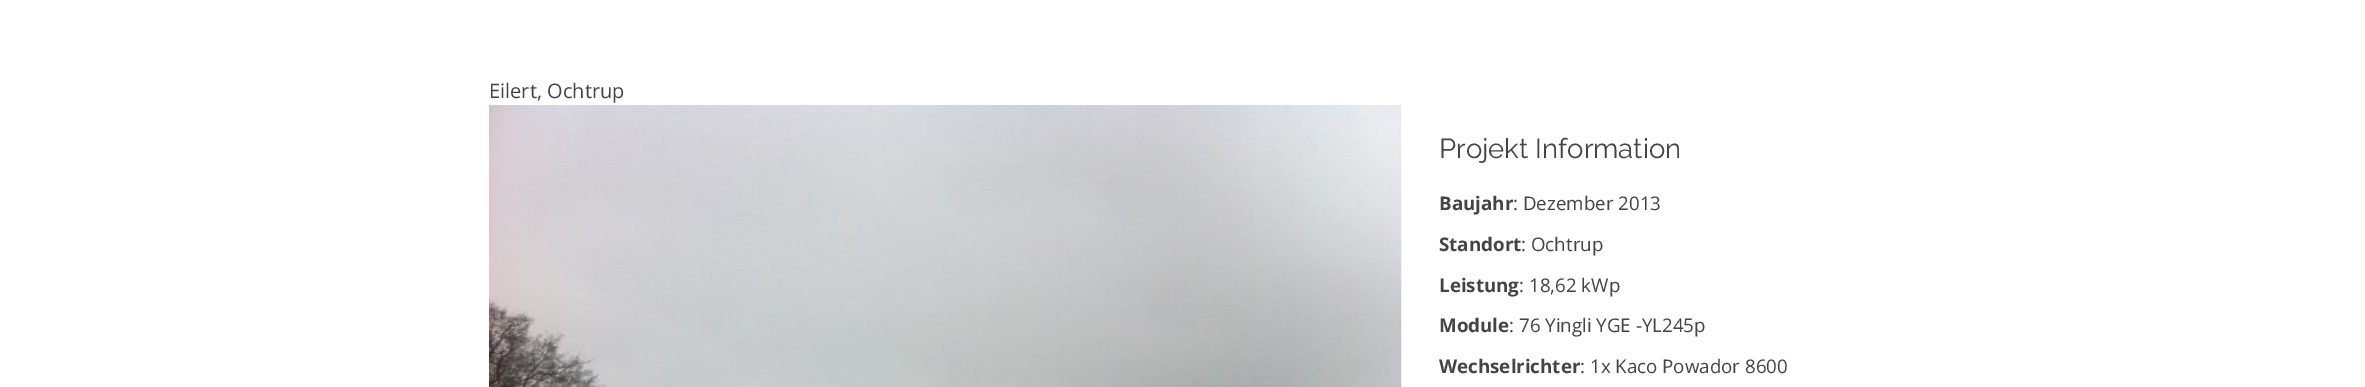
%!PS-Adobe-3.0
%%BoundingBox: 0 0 2365 387
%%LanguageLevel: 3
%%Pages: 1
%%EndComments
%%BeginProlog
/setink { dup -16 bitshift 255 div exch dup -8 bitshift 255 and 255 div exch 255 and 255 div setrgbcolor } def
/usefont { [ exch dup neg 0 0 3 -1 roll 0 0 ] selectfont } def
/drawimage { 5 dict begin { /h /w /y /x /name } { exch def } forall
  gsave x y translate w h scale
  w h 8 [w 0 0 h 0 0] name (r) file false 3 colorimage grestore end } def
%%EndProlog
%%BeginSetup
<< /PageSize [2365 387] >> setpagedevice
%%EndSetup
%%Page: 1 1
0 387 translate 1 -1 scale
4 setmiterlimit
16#FFFFFF setink
0 0 2365 387 rectfill
/OpenSans-Regular 20 usefont
16#444444 setink
489 98 moveto (Eilert, Ochtrup) show
(img1.raw) 489 105 913 282 drawimage
/Raleway-Thin 27.5 usefont
1439 158 moveto (Projekt Information) show
/OpenSans-Bold 18.75 usefont
1439 210 moveto (Baujahr) show
/OpenSans-Regular 18.75 usefont
1513 210 moveto (: Dezember 2013) show
/OpenSans-Bold 18.75 usefont
1439 251 moveto (Standort) show
/OpenSans-Regular 18.75 usefont
1521 251 moveto (: Ochtrup) show
/OpenSans-Bold 18.75 usefont
1439 292 moveto (Leistung) show
/OpenSans-Regular 18.75 usefont
1519 292 moveto (: 18,62 kWp) show
/OpenSans-Bold 18.75 usefont
1439 332 moveto (Module) show
/OpenSans-Regular 18.75 usefont
1509 332 moveto (: 76 Yingli YGE -YL245p) show
/OpenSans-Bold 18.75 usefont
1439 373 moveto (Wechselrichter) show
/OpenSans-Regular 18.75 usefont
1580 373 moveto (: 1x Kaco Powador 8600) show
showpage
%%EOF
